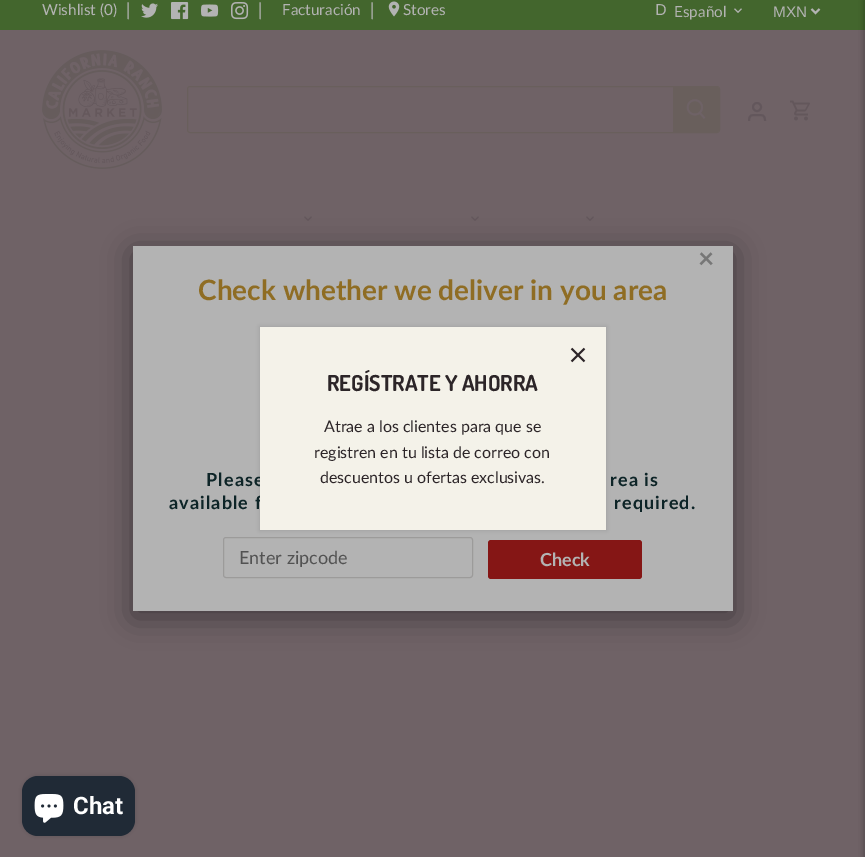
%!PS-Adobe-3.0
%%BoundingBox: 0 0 865 857
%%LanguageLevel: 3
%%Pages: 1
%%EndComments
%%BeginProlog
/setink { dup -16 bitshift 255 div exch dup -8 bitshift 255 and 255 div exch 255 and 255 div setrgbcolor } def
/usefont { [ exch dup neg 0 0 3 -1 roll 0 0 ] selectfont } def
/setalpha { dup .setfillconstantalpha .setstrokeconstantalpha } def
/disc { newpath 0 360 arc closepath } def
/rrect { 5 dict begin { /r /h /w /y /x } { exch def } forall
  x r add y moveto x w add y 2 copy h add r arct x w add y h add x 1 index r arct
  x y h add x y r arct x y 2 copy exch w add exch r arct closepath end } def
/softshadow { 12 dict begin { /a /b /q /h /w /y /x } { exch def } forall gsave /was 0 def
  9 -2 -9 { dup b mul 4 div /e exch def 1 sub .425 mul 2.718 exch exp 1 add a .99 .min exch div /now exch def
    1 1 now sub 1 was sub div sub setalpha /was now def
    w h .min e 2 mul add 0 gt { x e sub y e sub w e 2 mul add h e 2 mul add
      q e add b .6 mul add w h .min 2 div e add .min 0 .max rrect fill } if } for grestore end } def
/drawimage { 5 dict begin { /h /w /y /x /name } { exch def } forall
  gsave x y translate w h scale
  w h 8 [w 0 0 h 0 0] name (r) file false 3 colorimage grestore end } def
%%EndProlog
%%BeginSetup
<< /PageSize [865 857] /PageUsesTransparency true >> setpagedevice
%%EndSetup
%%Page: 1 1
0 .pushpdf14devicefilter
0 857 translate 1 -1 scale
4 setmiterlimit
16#6F6266 setink
0 0 865 857 rectfill
16#43662D setink
0 0 865 30 rectfill
/Lato-Regular 15.25 usefont
16#B3B3B3 setink
42 15 moveto (Wishlist \(0\)) show
/Lato-Regular 18 usefont
126 16 moveto (|) show
(img1.raw) 141 3 17 15 drawimage
(img2.raw) 171 2 18 18 drawimage
(img3.raw) 201 4 18 13 drawimage
(img4.raw) 231 2 18 18 drawimage
258 16 moveto (|) show
/Lato-Regular 15.25 usefont
282 15 moveto (Facturación) show
/Lato-Regular 18 usefont
370 16 moveto (|) show
(img5.raw) 388 1 12 16 drawimage
/Lato-Regular 15.25 usefont
[
    [(Stores) 403 15]
    [(D) 655 15]
    [(Español) 674 17]
] { aload pop moveto show } forall
(img6.raw) 734 8 8 5 drawimage
2 setlinewidth
811.5 9 moveto 815.5 13 lineto 819.5 9 lineto stroke
/LiberationSans-Regular 15.25 usefont
773 17 moveto (MXN) show
(img7.raw) 42 50 120 119 drawimage
16#695F5C setink
1 setlinewidth
187.5 86.5 532 46 2.5 rrect stroke
673 87 moveto 717 87 lineto 718 87 719 88 719 89 curveto 719 130 lineto 719 131 718 132 717 132 curveto 673 132 lineto closepath fill
(img8.raw) 686 99 20 20 drawimage
16#63575C setink
2 setlinewidth
757 107 4 disc stroke
765 121 moveto 765 114.5 762.5 115 757 115 curveto 751.5 115 749 114.5 749 121 curveto stroke
(img9.raw) 790 100 20 21 drawimage
(img10.raw) 304 216 8 5 drawimage
(img10.raw) 471 216 8 5 drawimage
(img10.raw) 586 216 8 5 drawimage
16#000000 setink
133 252 600 365 0 15 0.4 softshadow
16#B3B3B3 setink
133 246 600 365 rectfill
/Lato-Bold 28 usefont
16#777777 setink
698 268 moveto (×) show
16#8F6D24 setink
198 300 moveto (Check whether we deliver in you area) show
/Lato-Bold 18 usefont
16#0D2427 setink
206 486 moveto 1.1 0 (Please) ashow
610 486 moveto 1.1 0 (rea is) ashow
169 509 moveto 1.1 0 (available f) ashow
614 509 moveto 1.1 0 (required.) ashow
16#9C9B9A setink
1 setlinewidth
223.5 537.5 249 40 2.5 rrect stroke
/Lato-Regular 18 usefont
16#525252 setink
239 564 moveto (Enter zipcode) show
16#851615 setink
488 540 154 39 3 rrect fill
/Lato-Bold 18 usefont
16#B3B3B3 setink
540 566 moveto (Check) show
16#000000 setink
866 0 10 857 0 3.5 0.5 softshadow
259 326 348 205 0 1.5 0.08 softshadow
16#F4F2E9 setink
260 327 346 203 rectfill
(img11.raw) 570 347 16 16 drawimage
/Dosis-Bold 22 usefont
16#2C2528 setink
327 391 moveto (REGÍSTRATE Y AHORRA) show
/Lato-Regular 16 usefont
[
    [(Atrae a los clientes para que se) 324 432]
    [(registren en tu lista de correo con) 314 458]
    [(descuentos u ofertas exclusivas.) 320 483]
] { aload pop moveto show } forall
16#000000 setink
22 776 113 60 16 2.5 0.15 softshadow
16#202A36 setink
22 776 113 60 16 rrect fill
(img12.raw) 34 794 30 29 drawimage
/Roboto-Bold 24 usefont
16#FFFFFF setink
73 814 moveto (Chat) show
.poppdf14devicefilter showpage
%%EOF
